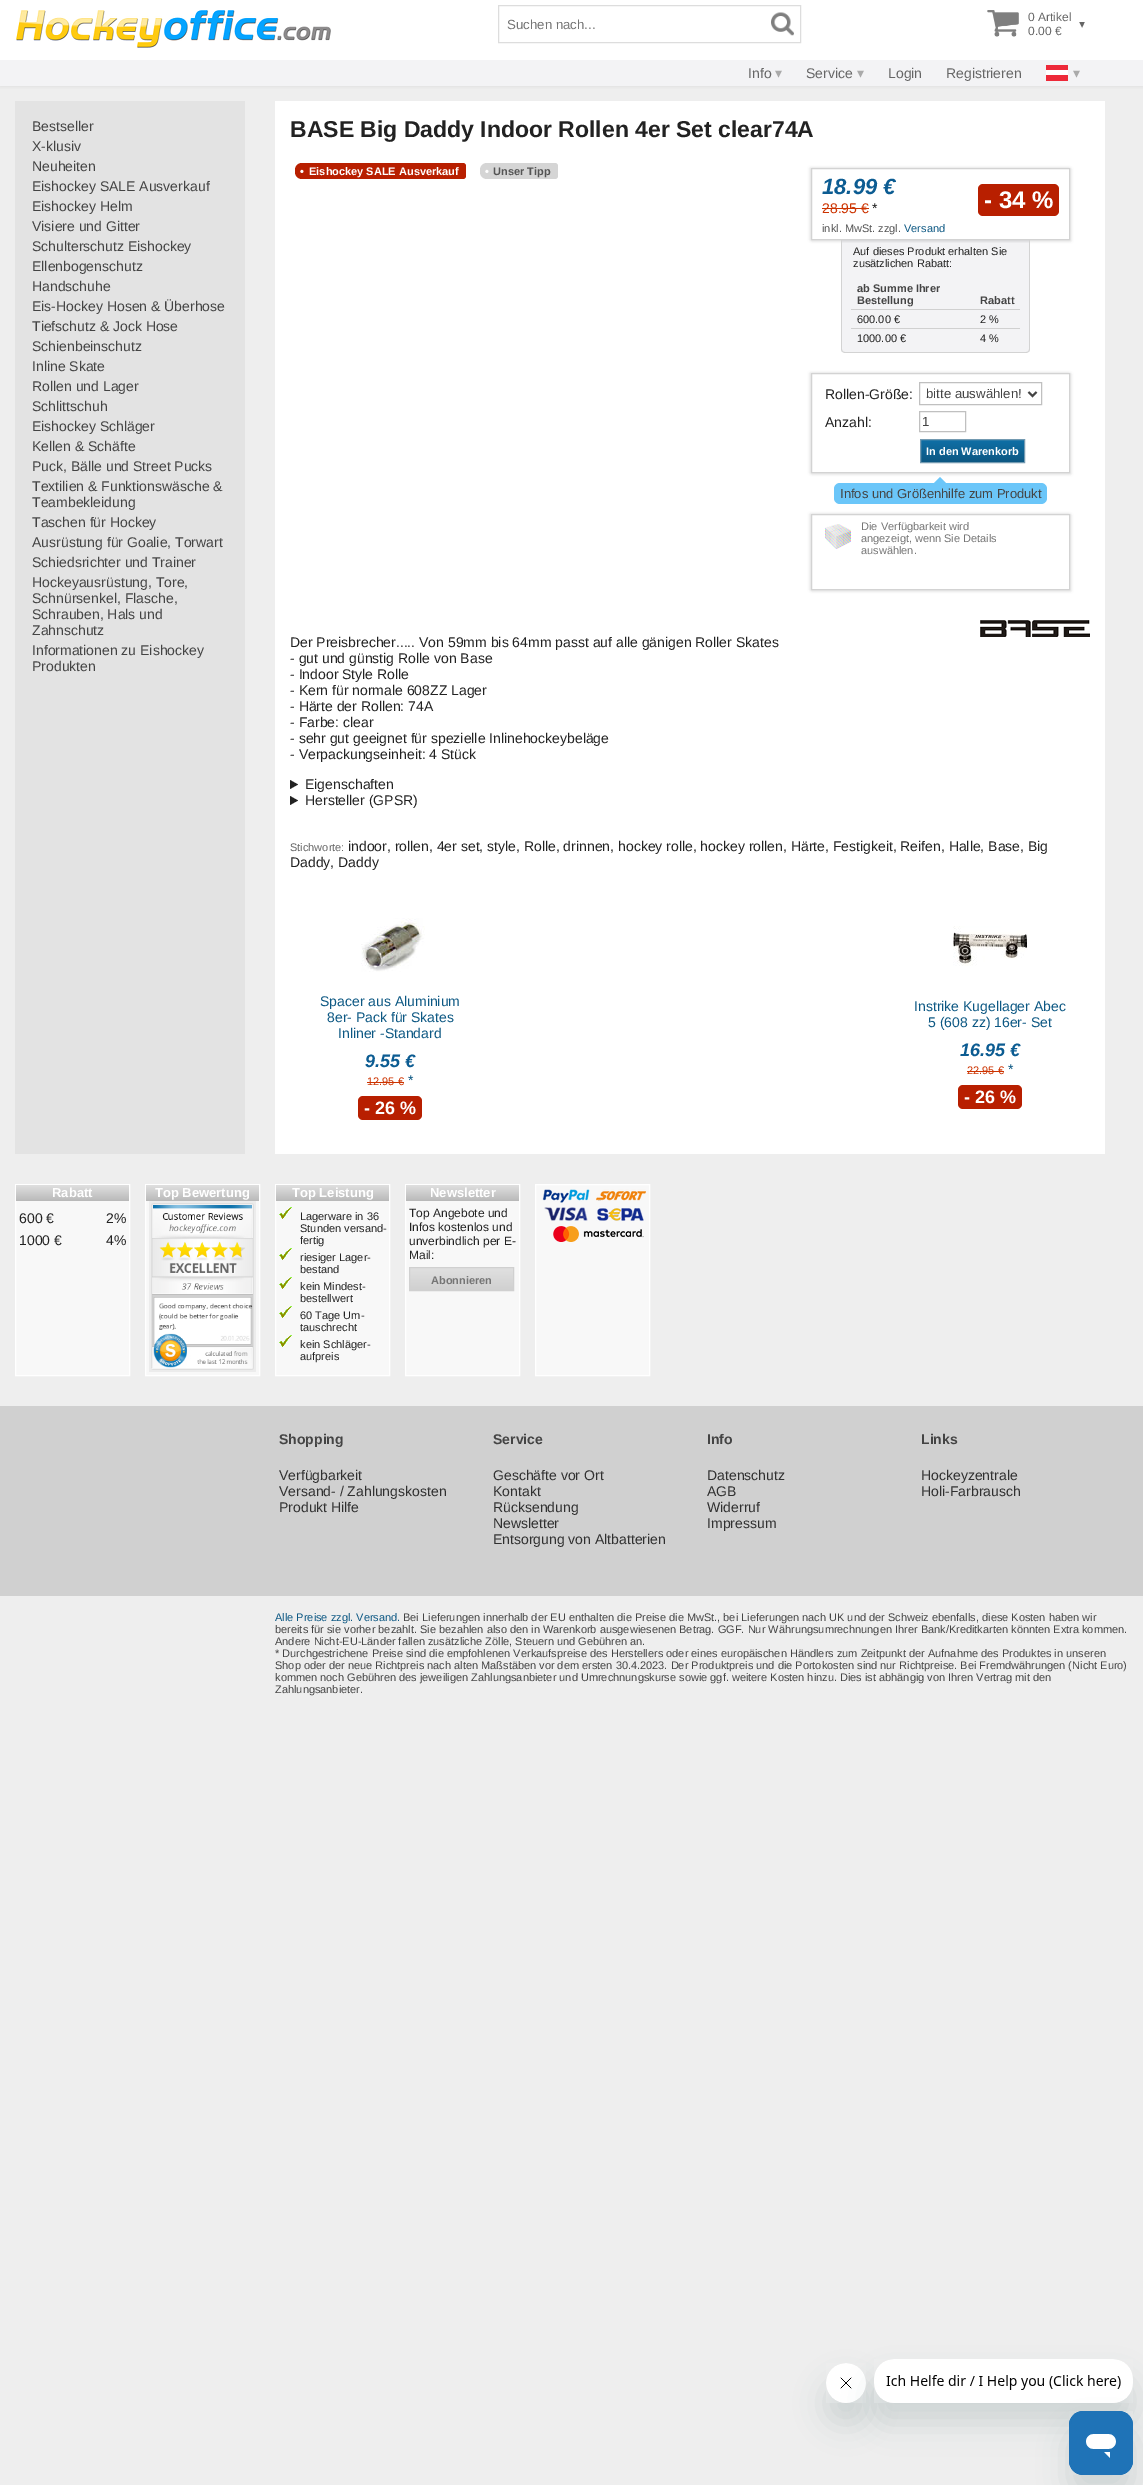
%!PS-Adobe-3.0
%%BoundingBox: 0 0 1143 2485
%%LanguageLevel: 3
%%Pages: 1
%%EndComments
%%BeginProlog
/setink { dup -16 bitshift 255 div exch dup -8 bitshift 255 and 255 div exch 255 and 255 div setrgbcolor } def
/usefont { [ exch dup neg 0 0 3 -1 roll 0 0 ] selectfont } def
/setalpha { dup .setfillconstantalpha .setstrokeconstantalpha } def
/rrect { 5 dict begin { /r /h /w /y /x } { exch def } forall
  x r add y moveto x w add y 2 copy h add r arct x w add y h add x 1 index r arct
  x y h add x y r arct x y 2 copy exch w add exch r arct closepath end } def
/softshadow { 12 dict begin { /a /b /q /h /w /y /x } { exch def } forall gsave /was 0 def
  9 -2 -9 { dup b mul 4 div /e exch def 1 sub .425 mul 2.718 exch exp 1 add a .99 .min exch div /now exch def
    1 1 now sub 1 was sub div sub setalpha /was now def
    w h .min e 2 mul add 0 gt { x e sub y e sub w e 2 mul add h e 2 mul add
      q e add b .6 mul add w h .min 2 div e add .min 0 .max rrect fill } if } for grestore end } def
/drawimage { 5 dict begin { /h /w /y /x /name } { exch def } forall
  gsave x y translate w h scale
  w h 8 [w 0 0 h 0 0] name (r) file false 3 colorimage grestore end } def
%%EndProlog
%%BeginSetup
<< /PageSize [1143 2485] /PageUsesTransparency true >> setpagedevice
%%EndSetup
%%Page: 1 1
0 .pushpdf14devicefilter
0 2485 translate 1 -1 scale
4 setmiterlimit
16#EEEEEE setink
0 0 1143 2485 rectfill
16#E0E0E0 setink
0 1 1143 86 0 1.5 1 softshadow
16#FFFFFF setink
0 0 1143 60 rectfill
(img1.raw) 16 10 315 38 drawimage
16#DDDDDD setink
498.5 5.5 302 37 rectstroke
/LiberationSans-Regular 13.25 usefont
16#757575 setink
507 29 moveto (Suchen nach...) show
(img2.raw) 771 12 23 24 drawimage
(img3.raw) 987 10 32 27 drawimage
/LiberationSans-Regular 12 usefont
16#666666 setink
1028 21 moveto (0 Artikel) show
1028 35 moveto (0.00 €) show
/DejaVuSans-Regular 12 usefont
1079 28 moveto (▾) show
16#F3F3F5 setink
0 60 1143 26 rectfill
/LiberationSans-Regular 14 usefont
16#666666 setink
748 78 moveto (Info) show
/DejaVuSans-Regular 14 usefont
16#AAAAAA setink
775 78 moveto (▾) show
/LiberationSans-Regular 14 usefont
16#666666 setink
806 78 moveto (Service) show
/DejaVuSans-Regular 14 usefont
16#AAAAAA setink
857 78 moveto (▾) show
/LiberationSans-Regular 14 usefont
16#666666 setink
888 78 moveto (Login) show
946 78 moveto (Registrieren) show
(img4.raw) 1046 65 22 16 drawimage
/DejaVuSans-Regular 14 usefont
16#AAAAAA setink
1073 78 moveto (▾) show
16#E3E3E3 setink
15 101 230 1053 rectfill
/LiberationSans-Regular 14 usefont
16#444444 setink
[
    [(Bestseller) 32 131]
    [(X-klusiv) 32 151]
    [(Neuheiten) 32 171]
    [(Eishockey SALE Ausverkauf) 32 191]
    [(Eishockey Helm) 32 211]
    [(Visiere und Gitter) 32 231]
    [(Schulterschutz Eishockey) 32 251]
    [(Ellenbogenschutz) 32 271]
    [(Handschuhe) 32 291]
    [(Eis-Hockey Hosen & Überhose) 32 311]
    [(Tiefschutz & Jock Hose) 32 331]
    [(Schienbeinschutz) 32 351]
    [(Inline Skate) 32 371]
    [(Rollen und Lager) 32 391]
    [(Schlittschuh) 32 411]
    [(Eishockey Schläger) 32 431]
    [(Kellen & Schäfte) 32 451]
    [(Puck, Bälle und Street Pucks) 32 471]
    [(Textilien & Funktionswäsche &) 32 491]
    [(Teambekleidung) 32 507]
    [(Taschen für Hockey) 32 527]
    [(Ausrüstung für Goalie, Torwart) 32 547]
    [(Schiedsrichter und Trainer) 32 567]
    [(Hockeyausrüstung, Tore,) 32 587]
    [(Schnürsenkel, Flasche,) 32 603]
    [(Schrauben, Hals und) 32 619]
    [(Zahnschutz) 32 635]
    [(Informationen zu Eishockey) 32 655]
    [(Produkten) 32 671]
] { aload pop moveto show } forall
16#FFFFFF setink
275 101 830 1053 rectfill
/LiberationSans-Bold 23 usefont
16#222222 setink
290 137 moveto (BASE Big Daddy Indoor Rollen 4er Set clear74A) show
16#B81F00 setink
302 163 moveto 463 163 lineto 464.5 163 466 164.5 466 166 curveto 466 176 lineto 466 177.5 464.5 179 463 179 curveto 302 179 lineto 298 179 295 176 295 172 curveto 295 170 lineto 295 166 298 163 302 163 curveto closepath fill
/LiberationSans-Bold 11 usefont
16#FFFFFF setink
300 175 moveto (•) show
309 175 moveto (Eishockey SALE Ausverkauf) show
16#D5D5D5 setink
487 163 moveto 555 163 lineto 556.5 163 558 164.5 558 166 curveto 558 176 lineto 558 177.5 556.5 179 555 179 curveto 487 179 lineto 483 179 480 176 480 172 curveto 480 170 lineto 480 166 483 163 487 163 curveto closepath fill
16#FFFFFF setink
485 175 moveto (•) show
16#555555 setink
493 175 moveto (Unser Tipp) show
gsave
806 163 moveto 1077 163 lineto 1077 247 lineto 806 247 lineto closepath 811 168 moveto 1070 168 lineto 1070 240 lineto 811 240 lineto closepath eoclip newpath
16#E0E0E0 setink
812 169 259 72 0 1.5 1 softshadow
grestore
gsave
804 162 moveto 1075 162 lineto 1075 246 lineto 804 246 lineto closepath 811 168 moveto 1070 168 lineto 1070 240 lineto 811 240 lineto closepath eoclip newpath
16#E0E0E0 setink
810 168 259 72 0 1.5 1 softshadow
grestore
16#D3D3D3 setink
811.5 168.5 258 71 rectstroke
/LiberationSans-BoldItalic 22 usefont
16#0C5C92 setink
822 194 moveto (18.99 €) show
/LiberationSans-Regular 14 usefont
16#CC3300 setink
822 213 moveto (28.95 €) show
822 208 47 1 rectfill
16#222222 setink
872 213 moveto (*) show
16#B81F00 setink
978 184 81 32 5 rrect fill
/LiberationSans-Bold 24 usefont
16#FFFFFF setink
984 208 moveto (- 34 %) show
/LiberationSans-Regular 11 usefont
16#555555 setink
822 232 moveto (inkl. MwSt. zzgl.) show
16#0D5883 setink
904 232 moveto (Versand) show
gsave
841 240 moveto 1030 240 lineto 1030 349 lineto 1030 351 1028 353 1026 353 curveto 845 353 lineto 843 353 841 351 841 349 curveto closepath clip newpath
gsave 841 240 moveto 1030 240 lineto 1030 352 lineto 841 352 lineto closepath clip newpath
<< /ShadingType 2 /ColorSpace /DeviceRGB /Coords [936 240 936 352] /Extend [true true] /Function << /FunctionType 3 /Domain [0 1] /Functions [<< /FunctionType 2 /Domain [0 1] /C0 [0.835 0.835 0.843] /C1 [0.953 0.953 0.961] /N 1 >> << /FunctionType 2 /Domain [0 1] /C0 [0.953 0.953 0.961] /C1 [0.953 0.953 0.961] /N 1 >>] /Bounds [0.03] /Encode [0 1 0 1] >> >> shfill grestore
grestore
16#D3D3D3 setink
841 240 moveto 1030 240 lineto 1030 349 lineto 1030 351 1028 353 1026 353 curveto 845 353 lineto 843 353 841 351 841 349 curveto closepath 842 240 moveto 1029 240 lineto 1029 349 lineto 1029 351 1028 352 1026 352 curveto 845 352 lineto 843 352 842 351 842 349 curveto closepath eofill
16#222222 setink
853 255 moveto (Auf dieses Produkt erhalten Sie) show
853 267 moveto (zusätzlichen Rabatt:) show
/LiberationSans-Bold 11 usefont
16#444444 setink
[
    [(ab Summe Ihrer) 857 292]
    [(Bestellung) 857 304]
    [(Rabatt) 980 304]
] { aload pop moveto show } forall
/LiberationSans-Regular 11 usefont
16#222222 setink
857 323 moveto (600.00 €) show
16#D0D0D0 setink
851 309 169 1 rectfill
16#222222 setink
980 323 moveto (2 %) show
857 342 moveto (1000.00 €) show
16#D0D0D0 setink
851 328 169 1 rectfill
16#222222 setink
980 342 moveto (4 %) show
gsave
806 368 moveto 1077 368 lineto 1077 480 lineto 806 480 lineto closepath 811 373 moveto 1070 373 lineto 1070 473 lineto 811 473 lineto closepath eoclip newpath
16#E0E0E0 setink
812 374 259 100 0 1.5 1 softshadow
grestore
gsave
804 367 moveto 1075 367 lineto 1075 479 lineto 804 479 lineto closepath 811 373 moveto 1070 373 lineto 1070 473 lineto 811 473 lineto closepath eoclip newpath
16#E0E0E0 setink
810 373 259 100 0 1.5 1 softshadow
grestore
16#D3D3D3 setink
811.5 373.5 258 99 rectstroke
/LiberationSans-Regular 14 usefont
16#222222 setink
825 399 moveto (Rollen-Größe:) show
16#C0C0C0 setink
919.5 382.5 122 22 rectstroke
16#444444 setink
2 setlinewidth
1028.5 392 moveto 1032.5 396 lineto 1036.5 392 lineto stroke
/LiberationSans-Regular 13.25 usefont
926 398 moveto (bitte auswählen!) show
/LiberationSans-Regular 14 usefont
16#222222 setink
825 427 moveto (Anzahl:) show
16#C0C0C0 setink
1 setlinewidth
919.5 411.5 46 20 rectstroke
/LiberationSans-Regular 13.25 usefont
16#444444 setink
922 426 moveto (1) show
gsave 921 440 moveto 1024 440 lineto 1024 462 lineto 921 462 lineto closepath clip newpath
<< /ShadingType 2 /ColorSpace /DeviceRGB /Coords [973 440 973 462] /Extend [true true] /Function << /FunctionType 2 /Domain [0 1] /C0 [0.059 0.435 0.651] /C1 [0.051 0.345 0.514] /N 1 >> >> shfill grestore
16#739AB1 setink
920.5 439.5 104 23 rectstroke
/LiberationSans-Bold 11 usefont
16#FFFFFF setink
926 455 moveto (In den Warenkorb) show
16#6BC6F9 setink
834 483 213 21 6 rrect fill
946 483 moveto 934 483 lineto 940 477 lineto closepath fill
/LiberationSans-Regular 13 usefont
16#444444 setink
840 498 moveto (Infos und Größenhilfe zum Produkt) show
gsave
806 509 moveto 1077 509 lineto 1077 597 lineto 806 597 lineto closepath 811 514 moveto 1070 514 lineto 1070 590 lineto 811 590 lineto closepath eoclip newpath
16#E0E0E0 setink
812 515 259 76 0 1.5 1 softshadow
grestore
gsave
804 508 moveto 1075 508 lineto 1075 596 lineto 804 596 lineto closepath 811 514 moveto 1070 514 lineto 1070 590 lineto 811 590 lineto closepath eoclip newpath
16#E0E0E0 setink
810 514 259 76 0 1.5 1 softshadow
grestore
16#D3D3D3 setink
811.5 514.5 258 75 rectstroke
(img5.raw) 825 524 26 25 drawimage
/LiberationSans-Regular 11 usefont
16#757575 setink
[
    [(Die Verfügbarkeit wird) 861 530]
    [(angezeigt, wenn Sie Details) 861 542]
    [(auswählen.) 861 554]
] { aload pop moveto show } forall
(img6.raw) 980 620 110 17 drawimage
/LiberationSans-Regular 14 usefont
16#222222 setink
[
    [(Der Preisbrecher..... Von 59mm bis 64mm passt auf alle gänigen Roller Skates) 290 647]
    [(- gut und günstig Rolle von Base) 290 663]
    [(- Indoor Style Rolle) 290 679]
    [(- Kern für normale 608ZZ Lager) 290 695]
    [(- Härte der Rollen: 74A) 290 711]
    [(- Farbe: clear) 290 727]
    [(- sehr gut geeignet für spezielle Inlinehockeybeläge) 290 743]
    [(- Verpackungseinheit: 4 Stück) 290 759]
] { aload pop moveto show } forall
290 780 moveto 298 784.5 lineto 290 789 lineto closepath fill
305 789 moveto (Eigenschaften) show
290 796 moveto 298 800.5 lineto 290 805 lineto closepath fill
305 805 moveto (Hersteller \(GPSR\)) show
/LiberationSans-Regular 11 usefont
16#666666 setink
290 851 moveto (Stichworte:) show
/LiberationSans-Regular 14 usefont
16#222222 setink
348 851 moveto (indoor, rollen, 4er set, style, Rolle, drinnen, hockey rolle, hockey rollen, Härte, Festigkeit, Reifen, Halle, Base, Big) show
290 867 moveto (Daddy, Daddy) show
(img7.raw) 361 918 64 54 drawimage
16#0D5883 setink
[
    [(Spacer aus Aluminium) 320 1006]
    [(8er- Pack für Skates) 327 1022]
    [(Inliner -Standard) 338 1038]
] { aload pop moveto show } forall
/LiberationSans-BoldItalic 18 usefont
16#0C5C92 setink
365 1067 moveto (9.55 €) show
/LiberationSans-Regular 11 usefont
16#CC3300 setink
367 1085 moveto (12.95 €) show
367 1082 37 1 rectfill
/LiberationSans-Regular 14 usefont
16#0D5883 setink
408 1085 moveto (*) show
16#B81F00 setink
358 1096 64 24 5 rrect fill
/LiberationSans-Bold 18 usefont
16#FFFFFF setink
364 1114 moveto (- 26 %) show
(img8.raw) 953 926 75 40 drawimage
/LiberationSans-Regular 14 usefont
16#0D5883 setink
914 1011 moveto (Instrike Kugellager Abec) show
928 1027 moveto (5 \(608 zz\) 16er- Set) show
/LiberationSans-BoldItalic 18 usefont
16#0C5C92 setink
960 1056 moveto (16.95 €) show
/LiberationSans-Regular 11 usefont
16#CC3300 setink
967 1074 moveto (22.95 €) show
967 1071 37 1 rectfill
/LiberationSans-Regular 14 usefont
16#0D5883 setink
1008 1074 moveto (*) show
16#B81F00 setink
958 1085 64 24 5 rrect fill
/LiberationSans-Bold 18 usefont
16#FFFFFF setink
964 1103 moveto (- 26 %) show
16#F8F8F8 setink
16 1201 113 174 rectfill
16#FFFFFF setink
15.5 1184.5 114 191 rectstroke
gsave 16 1185 moveto 129 1185 lineto 129 1201 lineto 16 1201 lineto closepath clip newpath
<< /ShadingType 2 /ColorSpace /DeviceRGB /Coords [73 1185 73 1201] /Extend [true true] /Function << /FunctionType 2 /Domain [0 1] /C0 [0.878 0.878 0.878] /C1 [0.725 0.725 0.725] /N 1 >> >> shfill grestore
/LiberationSans-Bold 13 usefont
52 1197 moveto (Rabatt) show
/LiberationSans-Regular 14 usefont
16#222222 setink
[
    [(600 €) 19 1223]
    [(2%) 106 1223]
    [(1000 €) 19 1245]
    [(4%) 106 1245]
] { aload pop moveto show } forall
16#F8F8F8 setink
146 1201 113 174 rectfill
16#FFFFFF setink
145.5 1184.5 114 191 rectstroke
gsave 146 1185 moveto 259 1185 lineto 259 1201 lineto 146 1201 lineto closepath clip newpath
<< /ShadingType 2 /ColorSpace /DeviceRGB /Coords [203 1185 203 1201] /Extend [true true] /Function << /FunctionType 2 /Domain [0 1] /C0 [0.878 0.878 0.878] /C1 [0.725 0.725 0.725] /N 1 >> >> shfill grestore
/LiberationSans-Bold 13 usefont
155 1197 moveto (Top Bewertung) show
(img9.raw) 149 1201 107 171 drawimage
16#F8F8F8 setink
276 1201 113 174 rectfill
16#FFFFFF setink
275.5 1184.5 114 191 rectstroke
gsave 276 1185 moveto 389 1185 lineto 389 1201 lineto 276 1201 lineto closepath clip newpath
<< /ShadingType 2 /ColorSpace /DeviceRGB /Coords [333 1185 333 1201] /Extend [true true] /Function << /FunctionType 2 /Domain [0 1] /C0 [0.878 0.878 0.878] /C1 [0.725 0.725 0.725] /N 1 >> >> shfill grestore
292 1197 moveto (Top Leistung) show
(img10.raw) 279 1207 13 12 drawimage
/LiberationSans-Regular 11 usefont
16#222222 setink
[
    [(Lagerware in 36) 300 1220]
    [(Stunden versand-) 300 1232]
    [(fertig) 300 1244]
] { aload pop moveto show } forall
(img10.raw) 279 1248 13 12 drawimage
300 1261 moveto (riesiger Lager-) show
300 1273 moveto (bestand) show
(img10.raw) 279 1277 13 12 drawimage
300 1290 moveto (kein Mindest-) show
300 1302 moveto (bestellwert) show
(img10.raw) 279 1306 13 12 drawimage
300 1319 moveto (60 Tage Um-) show
300 1331 moveto (tauschrecht) show
(img10.raw) 279 1335 13 12 drawimage
300 1348 moveto (kein Schläger-) show
300 1360 moveto (aufpreis) show
16#F8F8F8 setink
406 1201 113 174 rectfill
16#FFFFFF setink
405.5 1184.5 114 191 rectstroke
gsave 406 1185 moveto 519 1185 lineto 519 1201 lineto 406 1201 lineto closepath clip newpath
<< /ShadingType 2 /ColorSpace /DeviceRGB /Coords [463 1185 463 1201] /Extend [true true] /Function << /FunctionType 2 /Domain [0 1] /C0 [0.878 0.878 0.878] /C1 [0.725 0.725 0.725] /N 1 >> >> shfill grestore
/LiberationSans-Bold 13 usefont
430 1197 moveto (Newsletter) show
/LiberationSans-Regular 12 usefont
16#222222 setink
[
    [(Top Angebote und) 409 1217]
    [(Infos kostenlos und) 409 1231]
    [(unverbindlich per E-) 409 1245]
    [(Mail:) 409 1259]
] { aload pop moveto show } forall
gsave 410 1268 moveto 513 1268 lineto 513 1290 lineto 410 1290 lineto closepath clip newpath
<< /ShadingType 2 /ColorSpace /DeviceRGB /Coords [462 1268 462 1290] /Extend [true true] /Function << /FunctionType 2 /Domain [0 1] /C0 [0.878 0.878 0.878] /C1 [0.816 0.816 0.816] /N 1 >> >> shfill grestore
16#D0D0D0 setink
409.5 1267.5 104 23 rectstroke
/LiberationSans-Bold 11 usefont
16#757575 setink
431 1284 moveto (Abonnieren) show
16#F8F8F8 setink
535.5 1184.5 moveto 649.5 1184.5 lineto 649.5 1375.5 lineto 535.5 1375.5 lineto closepath gsave fill grestore
16#FFFFFF setink
stroke
(img11.raw) 542 1189 104 53 drawimage
16#D0D0D0 setink
0 1406 1143 190 rectfill
/LiberationSans-Bold 14 usefont
16#444444 setink
279 1444 moveto (Shopping) show
/LiberationSans-Regular 14 usefont
16#303030 setink
[
    [(Verfügbarkeit) 279 1480]
    [(Versand- / Zahlungskosten) 279 1496]
    [(Produkt Hilfe) 279 1512]
] { aload pop moveto show } forall
/LiberationSans-Bold 14 usefont
16#444444 setink
493 1444 moveto (Service) show
/LiberationSans-Regular 14 usefont
16#303030 setink
[
    [(Geschäfte vor Ort) 493 1480]
    [(Kontakt) 493 1496]
    [(Rücksendung) 493 1512]
    [(Newsletter) 493 1528]
    [(Entsorgung von Altbatterien) 493 1544]
] { aload pop moveto show } forall
/LiberationSans-Bold 14 usefont
16#444444 setink
707 1444 moveto (Info) show
/LiberationSans-Regular 14 usefont
16#303030 setink
[
    [(Datenschutz) 707 1480]
    [(AGB) 707 1496]
    [(Widerruf) 707 1512]
    [(Impressum) 707 1528]
] { aload pop moveto show } forall
/LiberationSans-Bold 14 usefont
16#444444 setink
921 1444 moveto (Links) show
/LiberationSans-Regular 14 usefont
16#303030 setink
921 1480 moveto (Hockeyzentrale) show
921 1496 moveto (Holi-Farbrausch) show
/LiberationSans-Regular 11 usefont
16#0D5883 setink
275 1621 moveto (Alle Preise zzgl. Versand.) show
16#444444 setink
[
    [(Bei Lieferungen innerhalb der EU enthalten die Preise die MwSt., bei Lieferungen nach UK und der Schweiz ebenfalls, diese Kosten haben wir) 403 1621]
    [(bereits für sie vorher bezahlt. Sie bezahlen also den in Warenkorb ausgewiesenen Betrag. GGF. Nur Währungsumrechnungen Ihrer Bank/Kreditkarten könnten Extra kommen.) 275 1633]
    [(Andere Nicht-EU-Länder fallen zusätzliche Zölle, Steuern und Gebühren an.) 275 1645]
    [(* Durchgestrichene Preise sind die empfohlenen Verkaufspreise des Herstellers oder eines europäischen Händlers zum Zeitpunkt der Aufnahme des Produktes in unseren) 275 1657]
    [(Shop oder der neue Richtpreis nach alten Maßstäben vor dem ersten 30.4.2023. Der Produktpreis und die Portokosten sind nur Richtpreise. Bei Fremdwährungen \(Nicht Euro\)) 275 1669]
    [(kommen noch Gebühren des jeweiligen Zahlungsanbieter und Umrechnungskurse sowie ggf. weitere Kosten hinzu. Dies ist abhängig von Ihren Vertrag mit den) 275 1681]
    [(Zahlungsanbieter.) 275 1693]
] { aload pop moveto show } forall
16#17494D setink
826 2383 40 40 20 15 0.15 softshadow
(img13.raw) 826 2363 40 40 drawimage
874 2379 259 44 20 15 0.15 softshadow
(img12.raw) 874 2359 259 44 drawimage
1069 2431 64 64 14 15 0.15 softshadow
(img14.raw) 1069 2411 64 64 drawimage
.poppdf14devicefilter showpage
%%EOF
